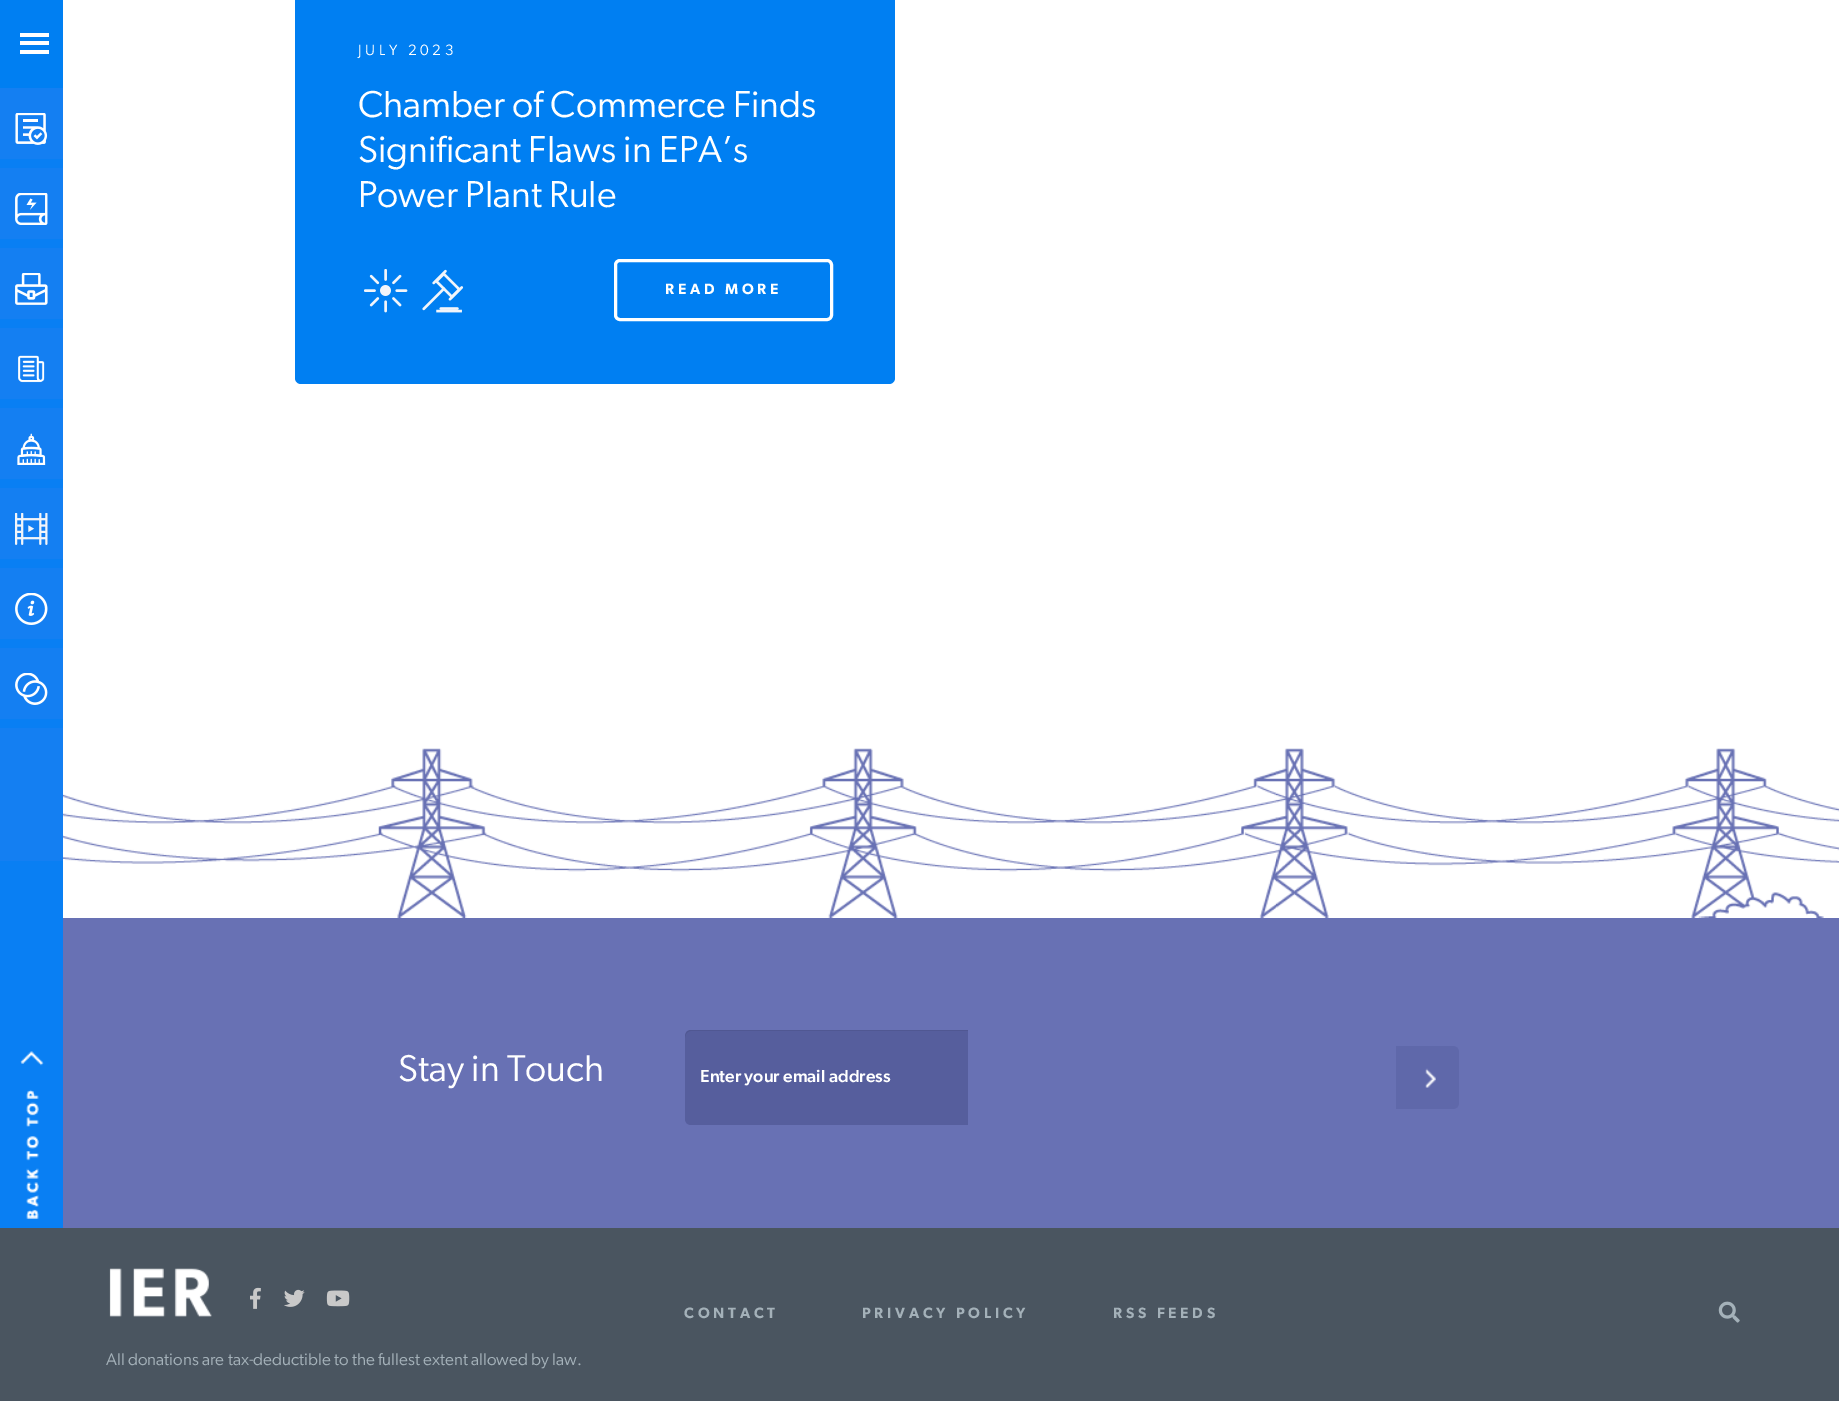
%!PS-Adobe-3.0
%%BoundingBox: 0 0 1839 1401
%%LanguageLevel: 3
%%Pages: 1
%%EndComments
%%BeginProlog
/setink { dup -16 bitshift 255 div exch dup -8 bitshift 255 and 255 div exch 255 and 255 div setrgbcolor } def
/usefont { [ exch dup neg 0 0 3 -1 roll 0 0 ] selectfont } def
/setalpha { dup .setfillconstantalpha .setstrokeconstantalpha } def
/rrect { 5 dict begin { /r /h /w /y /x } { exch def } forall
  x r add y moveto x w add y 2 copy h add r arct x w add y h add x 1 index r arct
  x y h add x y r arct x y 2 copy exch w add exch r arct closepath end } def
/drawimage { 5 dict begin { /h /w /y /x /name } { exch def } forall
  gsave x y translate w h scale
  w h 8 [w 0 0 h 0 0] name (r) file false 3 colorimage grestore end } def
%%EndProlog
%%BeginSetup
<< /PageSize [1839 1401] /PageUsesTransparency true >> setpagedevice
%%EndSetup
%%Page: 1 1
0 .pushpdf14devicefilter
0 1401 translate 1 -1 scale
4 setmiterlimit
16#FFFFFF setink
0 0 1839 1401 rectfill
[
    [0 0 63 88 16#007FF2]
    [20 33 29 4 16#FFFFFF]
    [20 41 29 4 16#FFFFFF]
    [20 50 29 4 16#FFFFFF]
] { aload pop setink rectfill } forall
16#097FF3 setink
0 870 moveto 0 1370 lineto 63 1370 lineto 63 588 lineto 62 588 lineto 62 870 lineto closepath fill
0 870 moveto 0 1120 lineto 63 1120 lineto 63 338 lineto 62 338 lineto 62 870 lineto closepath fill
0 159 63 711 rectfill
16#147FF2 setink
0 88 63 71 rectfill
(img1.raw) 15 113 33 32 drawimage
0 168 63 71 rectfill
(img2.raw) 15 193 33 32 drawimage
0 248 63 71 rectfill
(img3.raw) 15 273 33 32 drawimage
0 328 63 71 rectfill
(img4.raw) 18 355 27 28 drawimage
0 408 63 71 rectfill
(img5.raw) 17 433 29 32 drawimage
0 488 63 71 rectfill
(img6.raw) 15 513 33 32 drawimage
0 568 63 71 rectfill
(img7.raw) 15 593 33 32 drawimage
0 648 63 71 rectfill
(img8.raw) 15 673 33 32 drawimage
0 728 63 133 rectfill
(img9.raw) 20 1051 24 168 drawimage
16#007FF2 setink
295 -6 600 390 6 rrect fill
/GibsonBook-Regular 15 usefont
16#FFFFFF setink
358 55 moveto 3.75 0 (JULY 2023) ashow
/GibsonBook-Regular 37.6 usefont
[
    [(Chamber of Commerce Finds) 358 117]
    [(Significant Flaws in EPA’s) 358 162]
    [(Power Plant Rule) 358 207]
] { aload pop moveto show } forall
(img10.raw) 364 269 44 44 drawimage
(img11.raw) 422 269 42 44 drawimage
3 setlinewidth
615.5 260.5 216 59 4.5 rrect stroke
/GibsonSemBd-SemiBold 15 usefont
665 294 moveto 3.75 0 (READ MORE) ashow
16#6871B4 setink
63 918 1776 310 rectfill
(img12.raw) 63 748 1776 170 drawimage
/GibsonBook-Regular 37.5 usefont
16#FFFFFF setink
398 1081 moveto (Stay in Touch) show
16#565E9D setink
691 1030 moveto 968 1030 lineto 968 1125 lineto 691 1125 lineto 687.5 1125 685 1122.5 685 1119 curveto 685 1036 lineto 685 1032.5 687.5 1030 691 1030 curveto closepath fill
0.07 setalpha
16#000000 setink
691 1031 moveto 968 1031 lineto 968 1030 lineto 691 1030 lineto 686 1030 685 1034 685 1038 curveto 685 1034 688 1031 691 1031 curveto closepath fill
/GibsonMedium-Medium 17.5 usefont
1 setalpha
16#FFFFFF setink
700 1082 moveto (Enter your email address) show
16#5F68AA setink
1396 1046 moveto 1453 1046 lineto 1456.5 1046 1459 1048.5 1459 1052 curveto 1459 1103 lineto 1459 1106.5 1456.5 1109 1453 1109 curveto 1396 1109 lineto closepath fill
(img13.raw) 1425 1068 11 20 drawimage
16#4A5560 setink
0 1228 1839 173 rectfill
/GibsonSemBd-SemiBold 15 usefont
16#A4B1B9 setink
684 1318 moveto 3.75 0 (CONTACT) ashow
862 1318 moveto 3.75 0 (PRIVACY POLICY) ashow
1113 1318 moveto 3.75 0 (RSS FEEDS) ashow
(img14.raw) 1718 1301 22 22 drawimage
(img15.raw) 109 1268 103 49 drawimage
(img16.raw) 250 1287 11 22 drawimage
(img17.raw) 284 1289 21 18 drawimage
(img18.raw) 326 1290 24 17 drawimage
/GibsonBook-Regular 17 usefont
106 1365 moveto (All donations are tax-deductible to the fullest extent allowed by law.) show
.poppdf14devicefilter showpage
%%EOF
